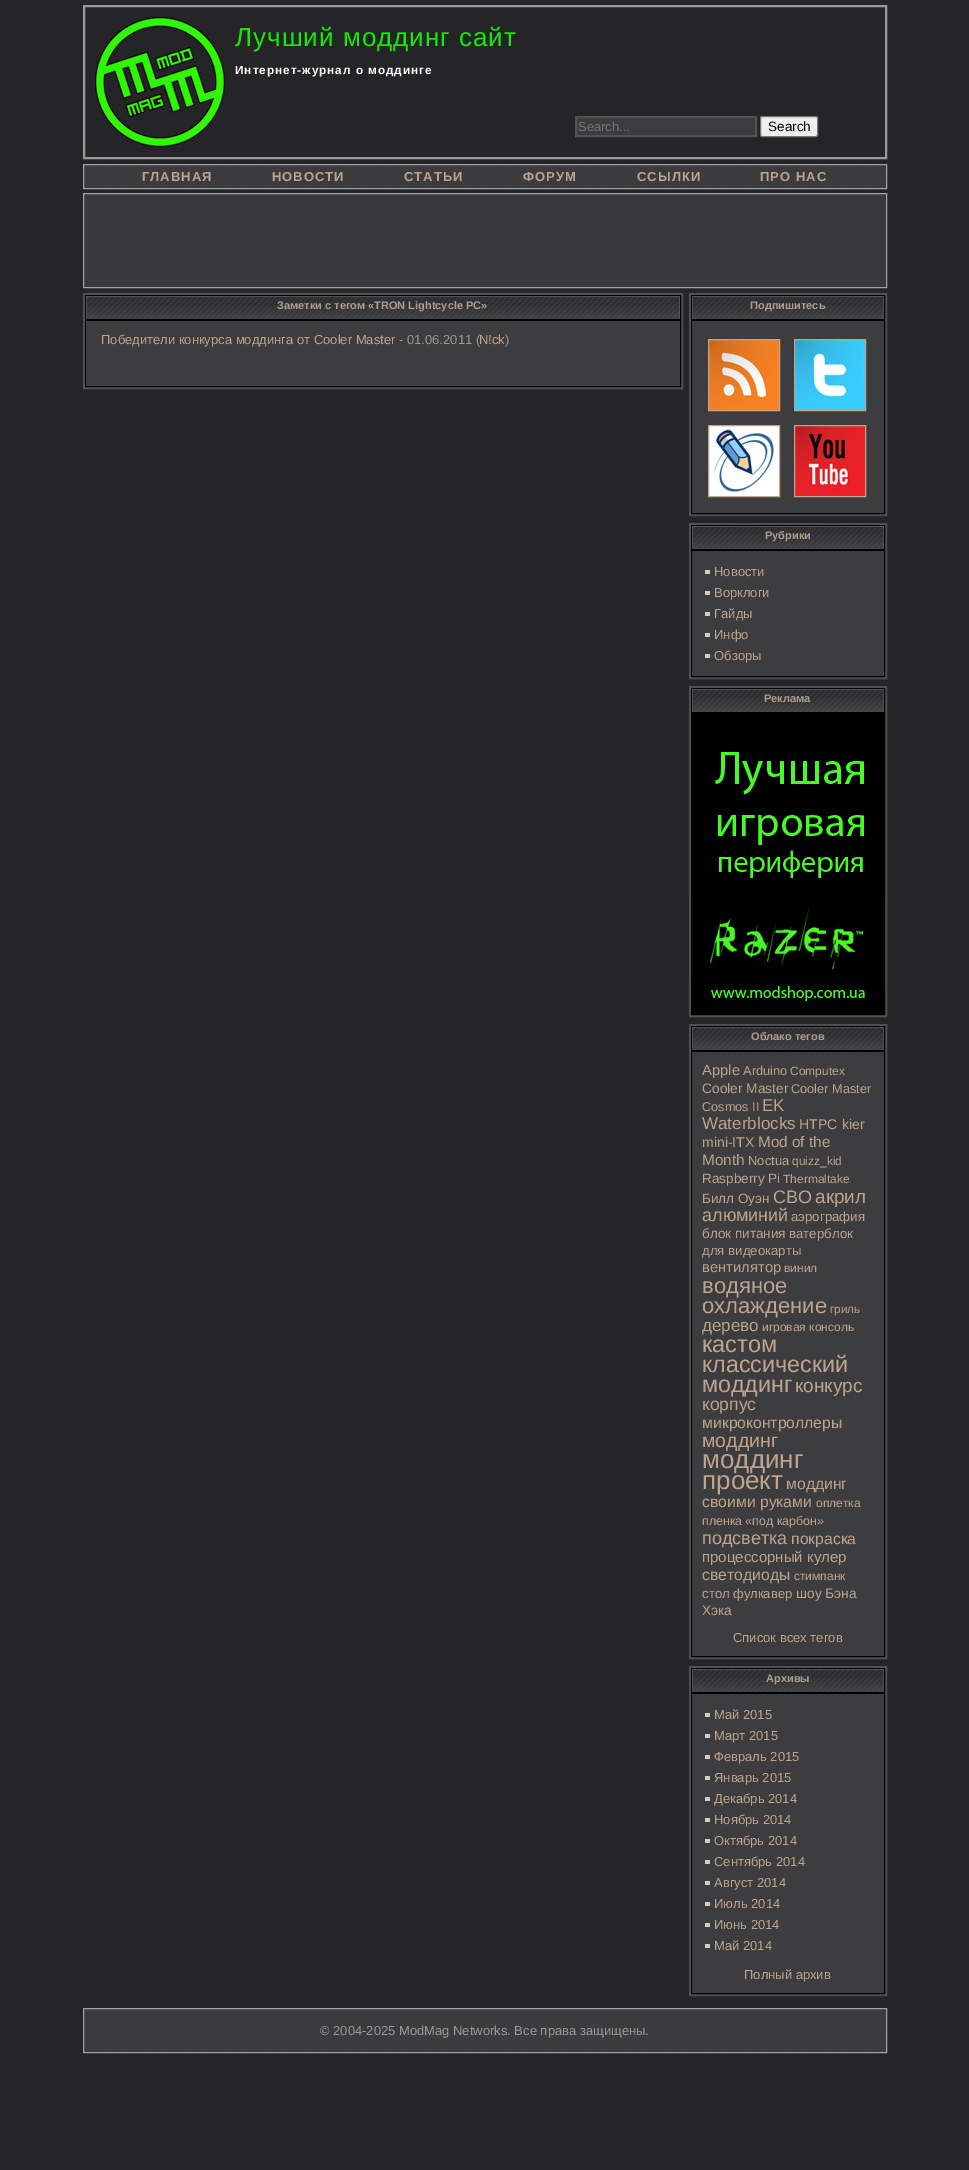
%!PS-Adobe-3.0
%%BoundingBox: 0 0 969 2170
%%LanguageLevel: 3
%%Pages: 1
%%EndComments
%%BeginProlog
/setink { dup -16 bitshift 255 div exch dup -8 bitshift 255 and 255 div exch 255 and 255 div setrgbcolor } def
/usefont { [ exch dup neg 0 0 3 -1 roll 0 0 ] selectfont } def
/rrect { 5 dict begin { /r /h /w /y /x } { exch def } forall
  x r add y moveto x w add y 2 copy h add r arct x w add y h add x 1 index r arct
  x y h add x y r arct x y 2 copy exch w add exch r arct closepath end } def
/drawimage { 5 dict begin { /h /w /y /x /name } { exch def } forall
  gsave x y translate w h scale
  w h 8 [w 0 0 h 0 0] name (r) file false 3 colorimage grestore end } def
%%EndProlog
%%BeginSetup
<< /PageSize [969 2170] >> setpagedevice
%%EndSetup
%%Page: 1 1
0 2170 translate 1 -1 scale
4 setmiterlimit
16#252427 setink
0 0 969 2170 rectfill
16#999999 setink
2 setlinewidth
84 6 802 152 rectstroke
(img1.raw) 95 17 130 130 drawimage
/LiberationSans-Regular 26 usefont
16#1AE709 setink
235 46 moveto 1 0 (Лучший моддинг сайт) ashow
/LiberationSans-Bold 11.75 usefont
16#FFFFFF setink
235 74 moveto 1 0 (Интернет-журнал о моддинге) ashow
16#3C3C3E setink
576 117 moveto 756 117 lineto 756 136 lineto 576 136 lineto closepath gsave fill grestore
16#515053 setink
stroke
/LiberationSans-Regular 13 usefont
16#757575 setink
578 131 moveto (Search...) show
16#EFEFEF setink
760.5 116.5 57 20 1.5 rrect gsave fill grestore
16#767676 setink
1 setlinewidth
stroke
/LiberationSans-Regular 13.5 usefont
16#000000 setink
768 131 moveto (Search) show
(img2.raw) 84 165 802 23 drawimage
16#A2A2A2 setink
83.5 164.5 803 24 rectstroke
/LiberationSans-Bold 13 usefont
16#BDA48E setink
142 181 moveto 1 0 (ГЛАВНАЯ) ashow
272 181 moveto 1 0 (НОВОСТИ) ashow
404 181 moveto 1 0 (СТАТЬИ) ashow
523 181 moveto 1 0 (ФОРУМ) ashow
637 181 moveto 1 0 (ССЫЛКИ) ashow
760 181 moveto 1 0 (ПРО НАС) ashow
16#39393B setink
83.5 193.5 moveto 886.5 193.5 lineto 886.5 287.5 lineto 83.5 287.5 lineto closepath gsave fill grestore
16#A2A2A2 setink
stroke
16#515053 setink
2 setlinewidth
84 294 598 94 rectstroke
16#000000 setink
1 setlinewidth
85.5 295.5 595 24 rectstroke
(img3.raw) 87 297 592 22 drawimage
[
    [86 296 594 1 16#515053]
    [679 296 1 23 16#515053]
    [86 296 1 23 16#515053]
] { aload pop setink rectfill } forall
/LiberationSans-Bold 11 usefont
16#AC9E91 setink
277 309 moveto (Заметки с тегом «TRON Lightcycle PC») show
16#000000 setink
85.5 320.5 595 66 rectstroke
16#3D3D3F setink
86 321 594 65 rectfill
/LiberationSans-Regular 13 usefont
16#BDA48E setink
101 344 moveto (Победители конкурса моддинга от Cooler Master) show
16#999999 setink
399 344 moveto (- 01.06.2011 \() show
16#BDA48E setink
479 344 moveto (N!ck) show
16#999999 setink
505 344 moveto (\)) show
16#515053 setink
2 setlinewidth
690 294 196 221 rectstroke
16#000000 setink
1 setlinewidth
691.5 295.5 193 24 rectstroke
(img4.raw) 693 297 190 22 drawimage
[
    [692 296 192 1 16#515053]
    [883 296 1 23 16#515053]
    [692 296 1 23 16#515053]
] { aload pop setink rectfill } forall
/LiberationSans-Bold 11 usefont
16#AC9E91 setink
750 309 moveto (Подпишитесь) show
16#000000 setink
691.5 320.5 193 193 rectstroke
16#3D3D3F setink
692 321 192 192 rectfill
(img5.raw) 709 340 70 70 drawimage
16#BDA48E setink
708.5 339.5 71 71 rectstroke
(img6.raw) 795 340 70 70 drawimage
794.5 339.5 71 71 rectstroke
(img7.raw) 709 426 70 70 drawimage
708.5 425.5 71 71 rectstroke
(img8.raw) 795 426 70 70 drawimage
794.5 425.5 71 71 rectstroke
16#515053 setink
2 setlinewidth
690 524 196 154 rectstroke
16#000000 setink
1 setlinewidth
691.5 525.5 193 24 rectstroke
(img4.raw) 693 527 190 22 drawimage
[
    [692 526 192 1 16#515053]
    [883 526 1 23 16#515053]
    [692 526 1 23 16#515053]
] { aload pop setink rectfill } forall
16#AC9E91 setink
765 539 moveto (Рубрики) show
16#000000 setink
691.5 550.5 193 126 rectstroke
16#3D3D3F setink
692 551 192 125 rectfill
16#CCCCCC setink
705 570 5 4 rectfill
/LiberationSans-Regular 13 usefont
16#BDA48E setink
714 576 moveto (Новости) show
16#CCCCCC setink
705 591 5 4 rectfill
16#BDA48E setink
714 597 moveto (Ворклоги) show
16#CCCCCC setink
705 612 5 4 rectfill
16#BDA48E setink
714 618 moveto (Гайды) show
16#CCCCCC setink
705 633 5 4 rectfill
16#BDA48E setink
714 639 moveto (Инфо) show
16#CCCCCC setink
705 654 5 4 rectfill
16#BDA48E setink
714 660 moveto (Обзоры) show
16#515053 setink
2 setlinewidth
690 687 196 329 rectstroke
16#000000 setink
1 setlinewidth
691.5 688.5 193 24 rectstroke
(img4.raw) 693 690 190 22 drawimage
[
    [692 689 192 1 16#515053]
    [883 689 1 23 16#515053]
    [692 689 1 23 16#515053]
] { aload pop setink rectfill } forall
/LiberationSans-Bold 11 usefont
16#AC9E91 setink
764 702 moveto (Реклама) show
16#000000 setink
691.5 713.5 193 301 rectstroke
(img9.raw) 692 714 192 300 drawimage
16#515053 setink
2 setlinewidth
690 1025 196 633 rectstroke
16#000000 setink
1 setlinewidth
691.5 1026.5 193 24 rectstroke
(img10.raw) 693 1028 190 22 drawimage
[
    [692 1027 192 1 16#515053]
    [883 1027 1 23 16#515053]
    [692 1027 1 23 16#515053]
] { aload pop setink rectfill } forall
16#AC9E91 setink
751 1040 moveto (Облако тегов) show
16#000000 setink
691.5 1051.5 193 605 rectstroke
16#3D3D3F setink
692 1052 192 604 rectfill
/LiberationSans-Regular 14.75 usefont
16#BDA48E setink
702 1075 moveto (Apple) show
/LiberationSans-Regular 12.75 usefont
743 1075 moveto (Arduino) show
/LiberationSans-Regular 12 usefont
790 1075 moveto (Computex) show
/LiberationSans-Regular 13.75 usefont
702 1093 moveto (Cooler Master) show
/LiberationSans-Regular 12.75 usefont
791 1093 moveto (Cooler Master) show
702 1111 moveto (Cosmos II) show
/LiberationSans-Regular 17 usefont
762 1111 moveto (EK) show
702 1129 moveto (Waterblocks) show
/LiberationSans-Regular 14 usefont
[
    [(HTPC) 799 1129]
    [(kier) 842 1129]
    [(mini-ITX) 702 1147]
] { aload pop moveto show } forall
/LiberationSans-Regular 15.25 usefont
758 1147 moveto (Mod of the) show
702 1165 moveto (Month) show
/LiberationSans-Regular 13 usefont
748 1165 moveto (Noctua) show
/LiberationSans-Regular 12 usefont
792 1165 moveto (quizz_kid) show
/LiberationSans-Regular 13.5 usefont
702 1183 moveto (Raspberry Pi) show
/LiberationSans-Regular 12 usefont
783 1183 moveto (Thermaltake) show
/LiberationSans-Regular 13.5 usefont
702 1203 moveto (Билл Оуэн) show
/LiberationSans-Regular 18 usefont
773 1203 moveto (СВО) show
/LiberationSans-Regular 19 usefont
815 1203 moveto (акрил) show
/LiberationSans-Regular 18 usefont
702 1221 moveto (алюминий) show
/LiberationSans-Regular 13.25 usefont
791 1221 moveto (аэрография) show
/LiberationSans-Regular 13.5 usefont
702 1238 moveto (блок питания) show
/LiberationSans-Regular 13.25 usefont
789 1238 moveto (ватерблок) show
702 1255 moveto (для видеокарты) show
/LiberationSans-Regular 14.75 usefont
702 1272 moveto (вентилятор) show
/LiberationSans-Regular 12 usefont
784 1272 moveto (винил) show
/LiberationSans-Regular 22 usefont
702 1293 moveto (водяное) show
702 1313 moveto (охлаждение) show
/LiberationSans-Regular 11.75 usefont
830 1313 moveto (гриль) show
/LiberationSans-Regular 17 usefont
702 1331 moveto (дерево) show
/LiberationSans-Regular 12 usefont
762 1331 moveto (игровая консоль) show
/LiberationSans-Regular 23.5 usefont
702 1352 moveto (кастом) show
/LiberationSans-Regular 23.25 usefont
702 1372 moveto (классический) show
702 1392 moveto (моддинг) show
/LiberationSans-Regular 19 usefont
795 1392 moveto (конкурс) show
/LiberationSans-Regular 17.5 usefont
702 1410 moveto (корпус) show
/LiberationSans-Regular 15.75 usefont
702 1428 moveto (микроконтроллеры) show
/LiberationSans-Regular 19.5 usefont
702 1447 moveto (моддинг) show
/LiberationSans-Regular 26 usefont
702 1468 moveto (моддинг) show
702 1489 moveto (проект) show
/LiberationSans-Regular 15.75 usefont
786 1489 moveto (моддинг) show
702 1507 moveto (своими руками) show
/LiberationSans-Regular 12 usefont
816 1507 moveto (оплетка) show
/LiberationSans-Regular 12.4 usefont
702 1525 moveto (пленка «под карбон») show
/LiberationSans-Regular 18 usefont
702 1544 moveto (подсветка) show
/LiberationSans-Regular 15.75 usefont
791 1544 moveto (покраска) show
/LiberationSans-Regular 15 usefont
702 1562 moveto (процессорный кулер) show
/LiberationSans-Regular 15.75 usefont
702 1580 moveto (светодиоды) show
/LiberationSans-Regular 12 usefont
794 1580 moveto (стимпанк) show
/LiberationSans-Regular 13.25 usefont
702 1598 moveto (стол) show
/LiberationSans-Regular 13 usefont
733 1598 moveto (фулкавер) show
/LiberationSans-Regular 13.75 usefont
796 1598 moveto (шоу Бэна) show
702 1615 moveto (Хэка) show
/LiberationSans-Regular 13 usefont
733 1642 moveto (Список всех тегов) show
16#515053 setink
2 setlinewidth
690 1667 196 328 rectstroke
16#000000 setink
1 setlinewidth
691.5 1668.5 193 24 rectstroke
(img11.raw) 693 1670 190 22 drawimage
[
    [692 1669 192 1 16#515053]
    [883 1669 1 23 16#515053]
    [692 1669 1 23 16#515053]
] { aload pop setink rectfill } forall
/LiberationSans-Bold 11 usefont
16#AC9E91 setink
766 1682 moveto (Архивы) show
16#000000 setink
691.5 1693.5 193 300 rectstroke
16#3D3D3F setink
692 1694 192 299 rectfill
16#CCCCCC setink
705 1713 5 4 rectfill
/LiberationSans-Regular 13 usefont
16#BDA48E setink
714 1719 moveto (Май 2015) show
16#CCCCCC setink
705 1734 5 4 rectfill
16#BDA48E setink
714 1740 moveto (Март 2015) show
16#CCCCCC setink
705 1755 5 4 rectfill
16#BDA48E setink
714 1761 moveto (Февраль 2015) show
16#CCCCCC setink
705 1776 5 4 rectfill
16#BDA48E setink
714 1782 moveto (Январь 2015) show
16#CCCCCC setink
705 1797 5 4 rectfill
16#BDA48E setink
714 1803 moveto (Декабрь 2014) show
16#CCCCCC setink
705 1818 5 4 rectfill
16#BDA48E setink
714 1824 moveto (Ноябрь 2014) show
16#CCCCCC setink
705 1839 5 4 rectfill
16#BDA48E setink
714 1845 moveto (Октябрь 2014) show
16#CCCCCC setink
705 1860 5 4 rectfill
16#BDA48E setink
714 1866 moveto (Сентябрь 2014) show
16#CCCCCC setink
705 1881 5 4 rectfill
16#BDA48E setink
714 1887 moveto (Август 2014) show
16#CCCCCC setink
705 1902 5 4 rectfill
16#BDA48E setink
714 1908 moveto (Июль 2014) show
16#CCCCCC setink
705 1923 5 4 rectfill
16#BDA48E setink
714 1929 moveto (Июнь 2014) show
16#CCCCCC setink
705 1944 5 4 rectfill
16#BDA48E setink
714 1950 moveto (Май 2014) show
744 1979 moveto (Полный архив) show
(img12.raw) 84 2009 802 43 drawimage
16#A2A2A2 setink
83.5 2008.5 803 44 rectstroke
16#999999 setink
320 2035 moveto (© 2004-2025 ModMag Networks. Все права защищены.) show
showpage
%%EOF
